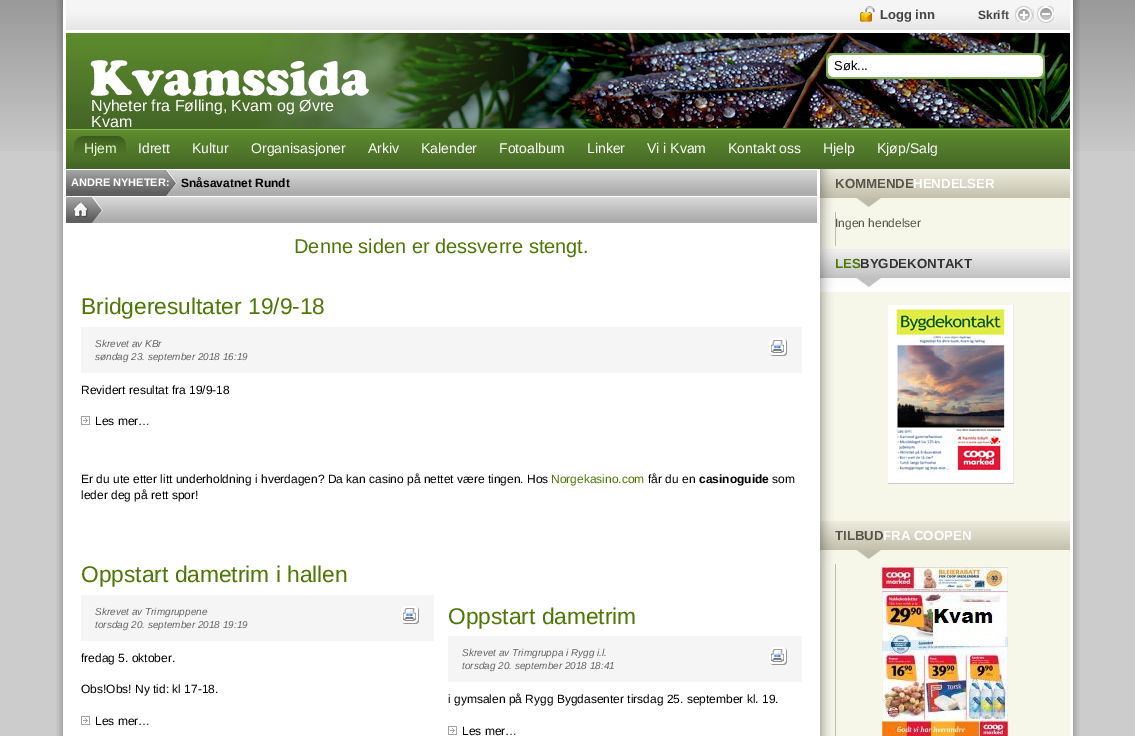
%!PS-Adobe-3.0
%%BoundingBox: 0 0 1135 736
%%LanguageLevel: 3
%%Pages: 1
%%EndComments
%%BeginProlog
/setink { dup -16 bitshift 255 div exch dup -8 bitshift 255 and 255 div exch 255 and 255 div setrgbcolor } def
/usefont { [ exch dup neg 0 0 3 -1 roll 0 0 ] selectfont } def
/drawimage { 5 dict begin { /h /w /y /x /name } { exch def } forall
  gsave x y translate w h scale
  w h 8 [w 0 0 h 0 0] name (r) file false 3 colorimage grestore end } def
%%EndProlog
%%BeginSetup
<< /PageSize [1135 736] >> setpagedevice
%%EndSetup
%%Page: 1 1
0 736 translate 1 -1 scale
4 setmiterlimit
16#CCCCCC setink
0 0 1135 736 rectfill
(img1.raw) 0 0 1135 151 drawimage
(img2.raw) 56 0 10 736 drawimage
(img3.raw) 1070 0 10 736 drawimage
(img4.raw) 66 0 1004 30 drawimage
(img5.raw) 860 6 15 16 drawimage
/LiberationSans-Bold 13 usefont
16#444444 setink
880 19 moveto (Logg inn) show
/LiberationSans-Bold 12 usefont
978 19 moveto (Skrift) show
(img6.raw) 1015 6 19 16 drawimage
(img7.raw) 1037 6 17 17 drawimage
(img8.raw) 66 33 1004 95 drawimage
16#FFFFFF setink
66 30 1004 3 rectfill
(img9.raw) 826 53 219 26 drawimage
/LiberationSans-Regular 13 usefont
16#000000 setink
834 70 moveto (Søk...) show
(img10.raw) 90 60 279 36 drawimage
/LiberationSans-Regular 16 usefont
16#FFFFFF setink
91 111 moveto (Nyheter fra Følling, Kvam og Øvre) show
91 127 moveto (Kvam) show
16#446626 setink
66 128 1004 41 rectfill
(img11.raw) 66 129 1004 35 drawimage
(img12.raw) 74 136 52 17 drawimage
(img13.raw) 74 136 9 7 drawimage
/LiberationSans-Regular 14 usefont
16#ECFFDA setink
84 153 moveto (Hjem) show
16#FFFFFF setink
[
    [(Idrett) 138 153]
    [(Kultur) 192 153]
    [(Organisasjoner) 251 153]
    [(Arkiv) 368 153]
    [(Kalender) 421 153]
    [(Fotoalbum) 499 153]
    [(Linker) 587 153]
    [(Vi i Kvam) 647 153]
    [(Kontakt oss) 728 153]
    [(Hjelp) 823 153]
    [(Kjøp/Salg) 877 153]
] { aload pop moveto show } forall
66 169 754 567 rectfill
(img14.raw) 820 246 250 275 drawimage
(img15.raw) 177 170 640 26 drawimage
(img16.raw) 66 170 111 26 drawimage
/LiberationSans-Bold 11 usefont
71 186 moveto (ANDRE NYHETER:) show
/LiberationSans-Bold 12 usefont
16#000000 setink
181 187 moveto (Snåsavatnet Rundt) show
(img17.raw) 103 197 714 26 drawimage
(img18.raw) 66 197 37 26 drawimage
/LiberationSans-Regular 20 usefont
16#4E7805 setink
294 253 moveto (Denne siden er dessverre stengt.) show
/LiberationSans-Regular 22.75 usefont
81 314 moveto (Bridgeresultater 19/9-18) show
16#F5F5F5 setink
81 327 721 46 rectfill
/LiberationSans-Italic 10 usefont
16#666666 setink
95 347 moveto (Skrevet av KBr) show
95 360 moveto (søndag 23. september 2018 16:19) show
(img19.raw) 769 338 18 18 drawimage
/LiberationSans-Regular 12 usefont
16#000000 setink
81 394 moveto (Revidert resultat fra 19/9-18) show
(img20.raw) 81 416 9 9 drawimage
95 425 moveto (Les mer…) show
81 483 moveto (Er du ute etter litt underholdning i hverdagen? Da kan casino på nettet være tingen. Hos) show
16#4E7805 setink
551 483 moveto (Norgekasino.com) show
16#000000 setink
648 483 moveto (får du en) show
/LiberationSans-Bold 12 usefont
699 483 moveto (casinoguide) show
/LiberationSans-Regular 12 usefont
772 483 moveto (som) show
81 499 moveto (leder deg på rett spor!) show
/LiberationSans-Regular 22.75 usefont
16#4E7805 setink
81 582 moveto (Oppstart dametrim i hallen) show
16#F5F5F5 setink
81 595 353 46 rectfill
/LiberationSans-Italic 10 usefont
16#666666 setink
95 615 moveto (Skrevet av Trimgruppene) show
95 628 moveto (torsdag 20. september 2018 19:19) show
(img19.raw) 401 606 18 18 drawimage
/LiberationSans-Regular 12 usefont
16#000000 setink
81 662 moveto (fredag 5. oktober.) show
81 693 moveto (Obs!Obs! Ny tid: kl 17-18.) show
(img20.raw) 81 716 9 9 drawimage
95 725 moveto (Les mer…) show
/LiberationSans-Regular 22.75 usefont
16#4E7805 setink
448 624 moveto (Oppstart dametrim) show
16#F5F5F5 setink
448 636 354 46 rectfill
/LiberationSans-Italic 10 usefont
16#666666 setink
462 656 moveto (Skrevet av Trimgruppa i Rygg i.l.) show
462 669 moveto (torsdag 20. september 2018 18:41) show
(img19.raw) 769 647 18 18 drawimage
/LiberationSans-Regular 12 usefont
16#000000 setink
448 703 moveto (i gymsalen på Rygg Bygdasenter tirsdag 25. september kl. 19.) show
(img20.raw) 448 726 9 9 drawimage
462 735 moveto (Les mer…) show
16#F6F6E9 setink
836 212 234 34 rectfill
(img21.raw) 820 212 16 34 drawimage
(img22.raw) 881 169 189 43 drawimage
(img23.raw) 820 169 61 43 drawimage
/LiberationSans-Bold 13.25 usefont
16#57544B setink
835 188 moveto (KOMMENDE) show
16#FFFFFF setink
913 188 moveto (HENDELSER) show
/LiberationSans-Regular 12 usefont
16#57544B setink
835 227 moveto (Ingen hendelser) show
(img24.raw) 881 249 189 43 drawimage
(img25.raw) 820 249 61 43 drawimage
/LiberationSans-Bold 13.25 usefont
16#4E7805 setink
835 268 moveto (LES) show
16#333333 setink
860 268 moveto (BYGDEKONTAKT) show
(img26.raw) 888 305 126 179 drawimage
16#F6F6E9 setink
836 564 234 172 rectfill
(img27.raw) 820 564 16 172 drawimage
(img22.raw) 881 521 189 43 drawimage
(img23.raw) 820 521 61 43 drawimage
16#57544B setink
835 540 moveto (TILBUD) show
16#FFFFFF setink
883 540 moveto (FRA COOPEN) show
(img28.raw) 882 567 126 169 drawimage
showpage
%%EOF
